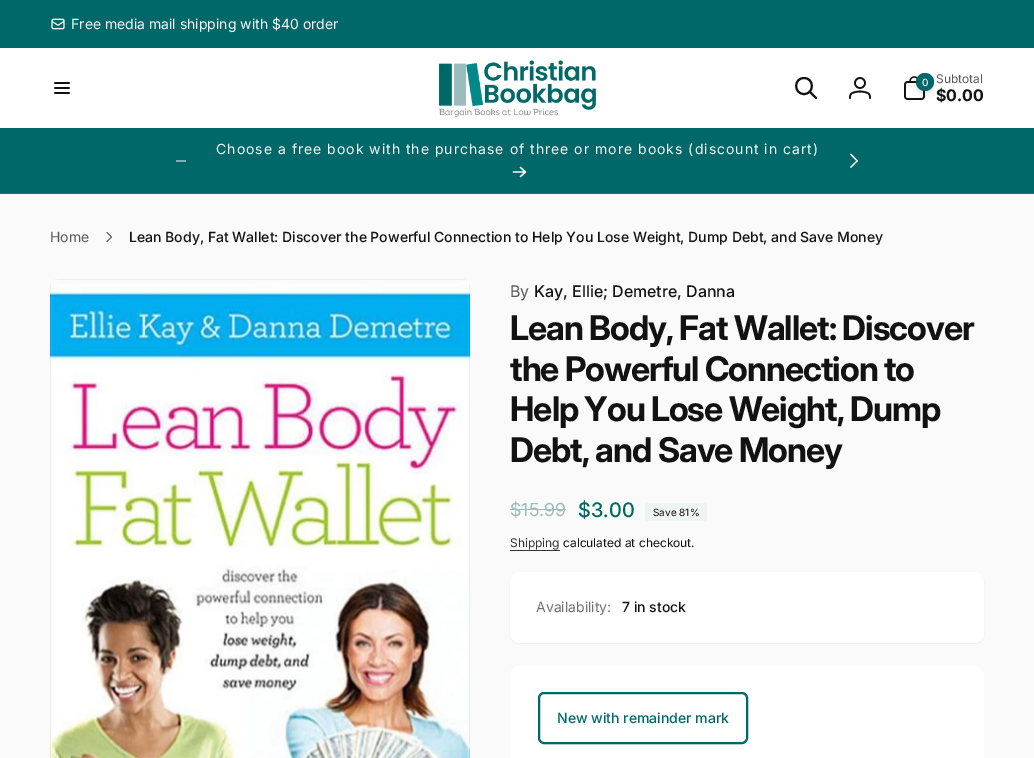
%!PS-Adobe-3.0
%%BoundingBox: 0 0 1034 758
%%LanguageLevel: 3
%%Pages: 1
%%EndComments
%%BeginProlog
/setink { dup -16 bitshift 255 div exch dup -8 bitshift 255 and 255 div exch 255 and 255 div setrgbcolor } def
/usefont { [ exch dup neg 0 0 3 -1 roll 0 0 ] selectfont } def
/setalpha { dup .setfillconstantalpha .setstrokeconstantalpha } def
/disc { newpath 0 360 arc closepath } def
/rrect { 5 dict begin { /r /h /w /y /x } { exch def } forall
  x r add y moveto x w add y 2 copy h add r arct x w add y h add x 1 index r arct
  x y h add x y r arct x y 2 copy exch w add exch r arct closepath end } def
/softshadow { 12 dict begin { /a /b /q /h /w /y /x } { exch def } forall gsave /was 0 def
  9 -2 -9 { dup b mul 4 div /e exch def 1 sub .425 mul 2.718 exch exp 1 add a .99 .min exch div /now exch def
    1 1 now sub 1 was sub div sub setalpha /was now def
    w h .min e 2 mul add 0 gt { x e sub y e sub w e 2 mul add h e 2 mul add
      q e add b .6 mul add w h .min 2 div e add .min 0 .max rrect fill } if } for grestore end } def
/drawimage { 5 dict begin { /h /w /y /x /name } { exch def } forall
  gsave x y translate w h scale
  w h 8 [w 0 0 h 0 0] name (r) file false 3 colorimage grestore end } def
%%EndProlog
%%BeginSetup
<< /PageSize [1034 758] /PageUsesTransparency true >> setpagedevice
%%EndSetup
%%Page: 1 1
0 .pushpdf14devicefilter
0 758 translate 1 -1 scale
4 setmiterlimit
16#FFFFFF setink
0 0 1034 758 rectfill
16#006868 setink
0 0 1034 48 rectfill
(img1.raw) 51 18 14 12 drawimage
/Inter-Regular 14 usefont
16#FAFAFA setink
71 29 moveto (Free media mail shipping with $40 order) show
(img2.raw) 54 82 16 12 drawimage
(img3.raw) 438 60 159 57 drawimage
16#121212 setink
2 setlinewidth
1 setlinecap
1 setlinejoin
816 98 moveto 809.5 91.5 lineto 804 94 moveto 814.5 94 814.5 78 804 78 curveto 793.5 78 793.5 94 804 94 curveto closepath stroke
(img4.raw) 849 77 22 22 drawimage
(img5.raw) 904 76 21 24 drawimage
917 76 16 16 8 2 0.06 softshadow
917 78 16 16 8 3 0.1 softshadow
16#006868 setink
925 82 9 disc fill
/Inter-Medium 10 usefont
16#FAFAFA setink
922 86 moveto (0) show
/Inter-Regular 12 usefont
16#585858 setink
936 83 moveto (Subtotal) show
/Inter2-Bold 16 usefont
16#121212 setink
936 101 moveto ($0.00) show
16#006868 setink
0 128 1034 65 rectfill
16#147474 setink
0 193 1034 1 rectfill
/Inter-Regular 14 usefont
16#FAFAFA setink
216 154 moveto 1 0 (Choose a free book with the purchase of three or more books \(discount in cart\)) ashow
1.3 setlinewidth
520.5 167.5 moveto 525.5 172 lineto 525.5 172 moveto 520.5 176.5 lineto 525.5 172 moveto 513.5 172 lineto stroke
16#7DB1B1 setink
176 160 10 2 rectfill
16#FAFAFA setink
850 154.5 moveto 851 153.5 lineto 858 161 lineto 857 161.5 lineto closepath fill
857 160 moveto 858 161 lineto 851 168 lineto 850 167 lineto closepath fill
0 194 1034 564 rectfill
16#585858 setink
50 242 moveto (Home) show
1 setlinewidth
107 232.5 moveto 111.5 237 lineto 107 241.5 lineto stroke
/Inter-Medium 14 usefont
16#121212 setink
129 242 moveto (Lean Body, Fat Wallet: Discover the Powerful Connection to Help You Lose Weight, Dump Debt, and Save Money) show
(img6.raw) 50 279 420 479 drawimage
/Inter2-Regular 16 usefont
16#585858 setink
510 297 moveto (By) show
/Inter2-Medium 16 usefont
16#121212 setink
534 297 moveto (Kay, Ellie; Demetre, Danna) show
/Inter-Bold 34 usefont
510 340 moveto -1 0 (Lean Body, Fat Wallet: Discover) ashow
510 381 moveto -1 0 (the Powerful Connection to) ashow
510 421 moveto -1 0 (Help You Lose Weight, Dump) ashow
510 462 moveto -1 0 (Debt, and Save Money) ashow
/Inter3-Regular 18 usefont
16#99BCBC setink
510 516 moveto ($15.99) show
510 509 56 1 rectfill
/Inter3-Medium 20 usefont
16#006868 setink
578 517 moveto ($3.00) show
16#EEF3F3 setink
645 503 62 18 3 rrect fill
/Inter-Regular 10 usefont
16#121212 setink
653 516 moveto (Save 81%) show
/Inter-Regular 12 usefont
16#353535 setink
510 547 moveto (Shipping) show
510 550 50 1 rectfill
16#121212 setink
563 547 moveto (calculated at checkout.) show
510 573 474 71 10 1 0.05 softshadow
16#FFFFFF setink
510 572 474 71 10 rrect fill
/Inter-Regular 14 usefont
16#717171 setink
536 612 moveto (Availability:) show
/Inter-Medium 14 usefont
16#121212 setink
622 612 moveto (7 in stock) show
16#FFFFFF setink
510 666 474 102 10 rrect fill
16#121212 setink
538 693 210 52 6 1 0.05 softshadow
16#FFFFFF setink
538.5 692.5 209 51 5.5 rrect gsave fill grestore
16#006868 setink
0 setlinecap
0 setlinejoin
stroke
539.5 693.5 207 49 4.5 rrect stroke
557 723 moveto (New with remainder mark) show
.poppdf14devicefilter showpage
%%EOF
